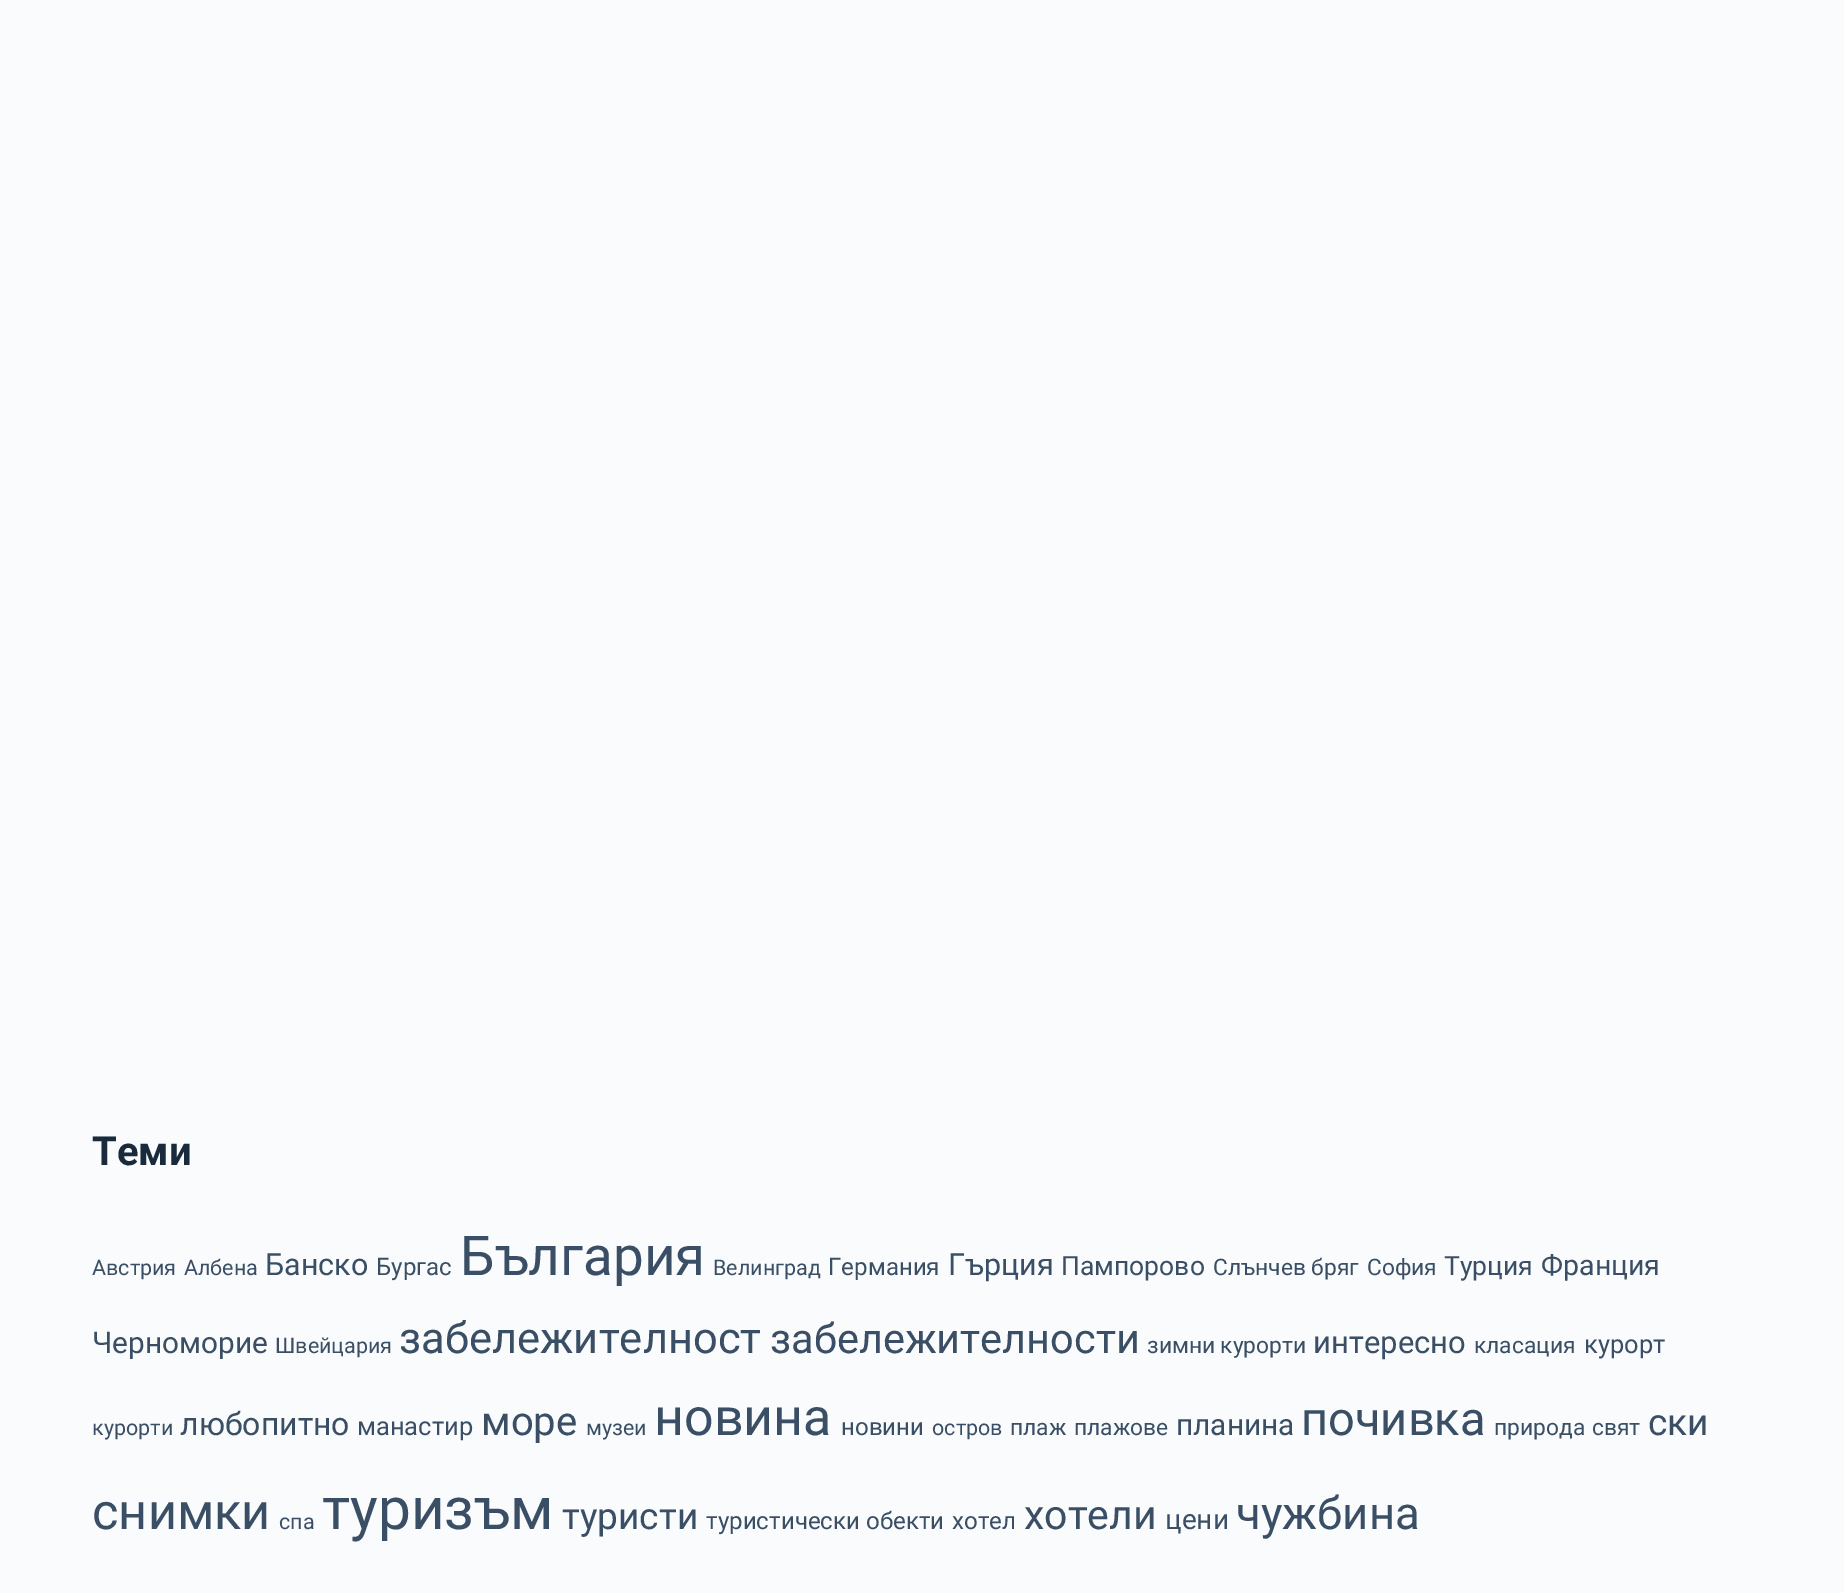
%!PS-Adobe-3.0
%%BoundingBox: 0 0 1844 1593
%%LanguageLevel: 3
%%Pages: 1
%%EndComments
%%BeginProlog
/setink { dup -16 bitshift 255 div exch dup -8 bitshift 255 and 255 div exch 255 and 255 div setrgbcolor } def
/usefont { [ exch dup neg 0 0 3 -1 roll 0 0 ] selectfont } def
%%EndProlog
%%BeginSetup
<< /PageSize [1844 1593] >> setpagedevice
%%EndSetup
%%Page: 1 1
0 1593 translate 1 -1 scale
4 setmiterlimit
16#FAFBFC setink
0 0 1844 1593 rectfill
/Roboto-Bold 40 usefont
16#192A3D setink
92 1165 moveto (Теми) show
/Roboto-Regular 21.5 usefont
16#3A4F66 setink
92 1275 moveto (Австрия) show
184 1275 moveto (Албена) show
/Roboto-Regular 30.5 usefont
265 1275 moveto (Банско) show
/Roboto-Regular 24.1 usefont
376 1275 moveto (Бургас) show
/Roboto-Regular 54.75 usefont
460 1275 moveto (България) show
/Roboto-Regular 21.5 usefont
713 1275 moveto (Велинград) show
/Roboto-Regular 24.1 usefont
828 1275 moveto (Германия) show
/Roboto-Regular 30.5 usefont
948 1275 moveto (Гърция) show
/Roboto-Regular 26.5 usefont
1061 1275 moveto (Пампорово) show
/Roboto-Regular 22.75 usefont
1213 1275 moveto (Слънчев бряг) show
1367 1275 moveto (София) show
/Roboto-Regular 26.5 usefont
1444 1275 moveto (Турция) show
/Roboto-Regular 28.5 usefont
1541 1275 moveto (Франция) show
/Roboto-Regular 29.75 usefont
92 1353 moveto (Черноморие) show
/Roboto-Regular 21.5 usefont
275 1353 moveto (Швейцария) show
/Roboto-Regular 43.5 usefont
399 1353 moveto (забележителност) show
/Roboto-Regular 41.5 usefont
770 1353 moveto (забележителности) show
/Roboto-Regular 22.75 usefont
1147 1353 moveto (зимни курорти) show
/Roboto-Regular 31 usefont
1313 1353 moveto (интересно) show
/Roboto-Regular 22.75 usefont
1474 1353 moveto (класация) show
/Roboto-Regular 25.5 usefont
1584 1353 moveto (курорт) show
/Roboto-Regular 21.5 usefont
92 1435 moveto (курорти) show
/Roboto-Regular 32 usefont
180 1435 moveto (любопитно) show
/Roboto-Regular 25.5 usefont
357 1435 moveto (манастир) show
/Roboto-Regular 40 usefont
481 1435 moveto (море) show
/Roboto-Regular 21.5 usefont
586 1435 moveto (музеи) show
/Roboto-Regular 52 usefont
654 1435 moveto (новина) show
/Roboto-Regular 24.1 usefont
841 1435 moveto (новини) show
/Roboto-Regular 21.5 usefont
932 1435 moveto (остров) show
/Roboto-Regular 22.75 usefont
1010 1435 moveto (плаж) show
1074 1435 moveto (плажове) show
/Roboto-Regular 29.75 usefont
1176 1435 moveto (планина) show
/Roboto-Regular 47 usefont
1301 1435 moveto (почивка) show
/Roboto-Regular 22.75 usefont
1494 1435 moveto (природа) show
1592 1435 moveto (свят) show
/Roboto-Regular 37 usefont
1648 1435 moveto (ски) show
/Roboto-Regular 50.5 usefont
92 1529 moveto (снимки) show
/Roboto-Regular 21.5 usefont
279 1529 moveto (спа) show
/Roboto-Regular 58.5 usefont
322 1529 moveto (туризъм) show
/Roboto-Regular 37 usefont
562 1529 moveto (туристи) show
/Roboto-Regular 24.1 usefont
706 1529 moveto (туристически обекти) show
952 1529 moveto (хотел) show
/Roboto-Regular 41 usefont
1024 1529 moveto (хотели) show
/Roboto-Regular 28 usefont
1165 1529 moveto (цени) show
/Roboto-Regular 45.5 usefont
1236 1529 moveto (чужбина) show
showpage
%%EOF
